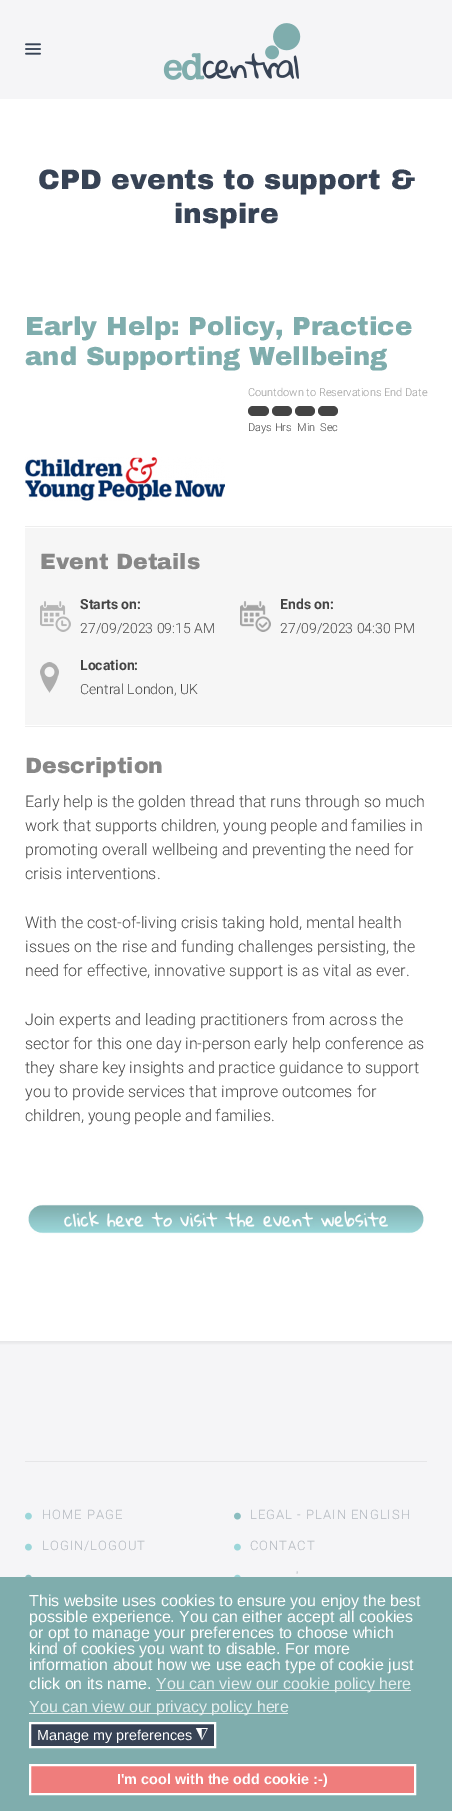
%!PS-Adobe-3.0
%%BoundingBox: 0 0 452 1811
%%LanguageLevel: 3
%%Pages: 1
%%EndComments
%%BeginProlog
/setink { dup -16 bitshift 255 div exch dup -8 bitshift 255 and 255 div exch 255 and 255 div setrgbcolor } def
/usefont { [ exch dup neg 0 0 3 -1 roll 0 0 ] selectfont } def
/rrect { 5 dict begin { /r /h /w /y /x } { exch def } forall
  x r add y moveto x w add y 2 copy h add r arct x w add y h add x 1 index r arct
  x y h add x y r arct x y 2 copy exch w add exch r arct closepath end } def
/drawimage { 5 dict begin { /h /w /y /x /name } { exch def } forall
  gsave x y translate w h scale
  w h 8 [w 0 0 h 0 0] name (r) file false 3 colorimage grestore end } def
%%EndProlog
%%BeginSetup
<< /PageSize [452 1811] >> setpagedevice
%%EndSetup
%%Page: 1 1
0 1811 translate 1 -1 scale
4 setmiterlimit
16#F5F5F7 setink
0 0 452 1811 rectfill
(img1.raw) 25 43 16 12 drawimage
(img2.raw) 163 23 138 58 drawimage
16#FFFFFF setink
0 99 452 1242 rectfill
/ArchivoBlack-Black 28 usefont
16#374355 setink
38 189 moveto (CPD events to support &) show
174 223 moveto (inspire) show
/ArchivoBlack-Black 26 usefont
16#7FADAD setink
25 335 moveto (Early Help: Policy, Practice) show
25 365 moveto (and Supporting Wellbeing) show
/Roboto-Light 11 usefont
16#999999 setink
248 396 moveto (Countdown to Reservations End Date) show
16#444444 setink
272 406 20 10 5 rrect fill
248 406 21 10 5 rrect fill
248 431 moveto (Days Hrs) show
295 406 20 10 5 rrect fill
297 431 moveto (Min) show
318 406 20 10 5 rrect fill
320 431 moveto (Sec) show
(img3.raw) 25 457 200 44 drawimage
16#F6F6F6 setink
25 528 427 197 rectfill
16#EEEEEE setink
25 526 427 1 rectfill
/ArchivoBlack-Black 22 usefont
16#878787 setink
40 569 moveto (Event Details) show
(img4.raw) 40 601 31 31 drawimage
/Roboto-Bold 14 usefont
16#444444 setink
80 609 moveto (Starts on:) show
/Roboto-Light 14 usefont
80 633 moveto (27/09/2023 09:15 AM) show
(img5.raw) 240 601 31 31 drawimage
/Roboto-Bold 14 usefont
280 609 moveto (Ends on:) show
/Roboto-Light 14 usefont
280 633 moveto (27/09/2023 04:30 PM) show
(img6.raw) 40 662 19 31 drawimage
/Roboto-Bold 14 usefont
80 670 moveto (Location:) show
/Roboto-Light 14 usefont
80 694 moveto (Central London, UK) show
16#EEEEEE setink
25 726 427 1 rectfill
/ArchivoBlack-Black 22 usefont
16#878787 setink
25 773 moveto (Description) show
/Roboto-Light 16 usefont
16#444444 setink
[
    [(Early help is the golden thread that runs through so much) 25 807]
    [(work that supports children, young people and families in) 25 831]
    [(promoting overall wellbeing and preventing the need for) 25 855]
    [(crisis interventions.) 25 879]
    [(With the cost-of-living crisis taking hold, mental health) 25 928]
    [(issues on the rise and funding challenges persisting, the) 25 952]
    [(need for effective, innovative support is as vital as ever.) 25 976]
    [(Join experts and leading practitioners from across the) 25 1025]
    [(sector for this one day in-person early help conference as) 25 1049]
    [(they share key insights and practice guidance to support) 25 1073]
    [(you to provide services that improve outcomes for) 25 1097]
    [(children, young people and families.) 25 1121]
] { aload pop moveto show } forall
(img7.raw) 28 1204 396 30 drawimage
gsave 0 1341 moveto 452 1341 lineto 452 1345 lineto 0 1345 lineto closepath clip newpath
<< /ShadingType 2 /ColorSpace /DeviceRGB /Coords [226 1341 226 1346] /Extend [true true] /Function << /FunctionType 2 /Domain [0 1] /C0 [0.902 0.902 0.91] /C1 [0.961 0.961 0.969] /N 1 >> >> shfill grestore
16#E6E6E8 setink
25 1461 402 1 rectfill
(img8.raw) 25 1512 7 8 drawimage
/Roboto-Light 13 usefont
16#B0B6BD setink
42 1519 moveto 1 0 (HOME PAGE) ashow
(img9.raw) 234 1512 7 8 drawimage
250 1519 moveto 1 0 (LEGAL - PLAIN ENGLISH) ashow
(img8.raw) 25 1543 7 8 drawimage
42 1550 moveto 1 0 (LOGIN/LOGOUT) ashow
(img8.raw) 234 1543 7 8 drawimage
250 1550 moveto 1 0 (CONTACT) ashow
296 1581 moveto 1 0 (') ashow
(img10.raw) 234 1574 7 3 drawimage
(img11.raw) 25 1574 7 3 drawimage
16#7FADAD setink
0 1577 452 234 rectfill
/LiberationSans-Regular 16 usefont
16#FFFFFF setink
[
    [(This website uses cookies to ensure you enjoy the best) 29 1606]
    [(possible experience. You can either accept all cookies) 29 1622]
    [(or opt to manage your preferences to choose which) 29 1638]
    [(kind of cookies you want to disable. For more) 29 1654]
    [(information about how we use each type of cookie just) 29 1670]
    [(click on its name.) 29 1689]
] { aload pop moveto show } forall
16#E5EFEF setink
156 1690 255 1 rectfill
156 1689 moveto (You can view our cookie policy here) show
29 1713 259 1 rectfill
29 1712 moveto (You can view our privacy policy here) show
16#374355 setink
30 1723 moveto 215 1723 lineto 215 1747 lineto 30 1747 lineto closepath gsave fill grestore
16#FFFFFF setink
2 setlinewidth
stroke
/LiberationSans-Regular 14.4 usefont
37 1740 moveto (Manage my preferences) show
/DejaVuSans-Regular 16 usefont
gsave 208 1730 translate 180 rotate 0 0 moveto (◮) show grestore
16#EF7D7C setink
30 1765 moveto 415 1765 lineto 415 1794 lineto 30 1794 lineto closepath gsave fill grestore
16#FFFFFF setink
stroke
/LiberationSans-Bold 14.4 usefont
117 1784 moveto (I'm cool with the odd cookie :-\)) show
showpage
%%EOF
